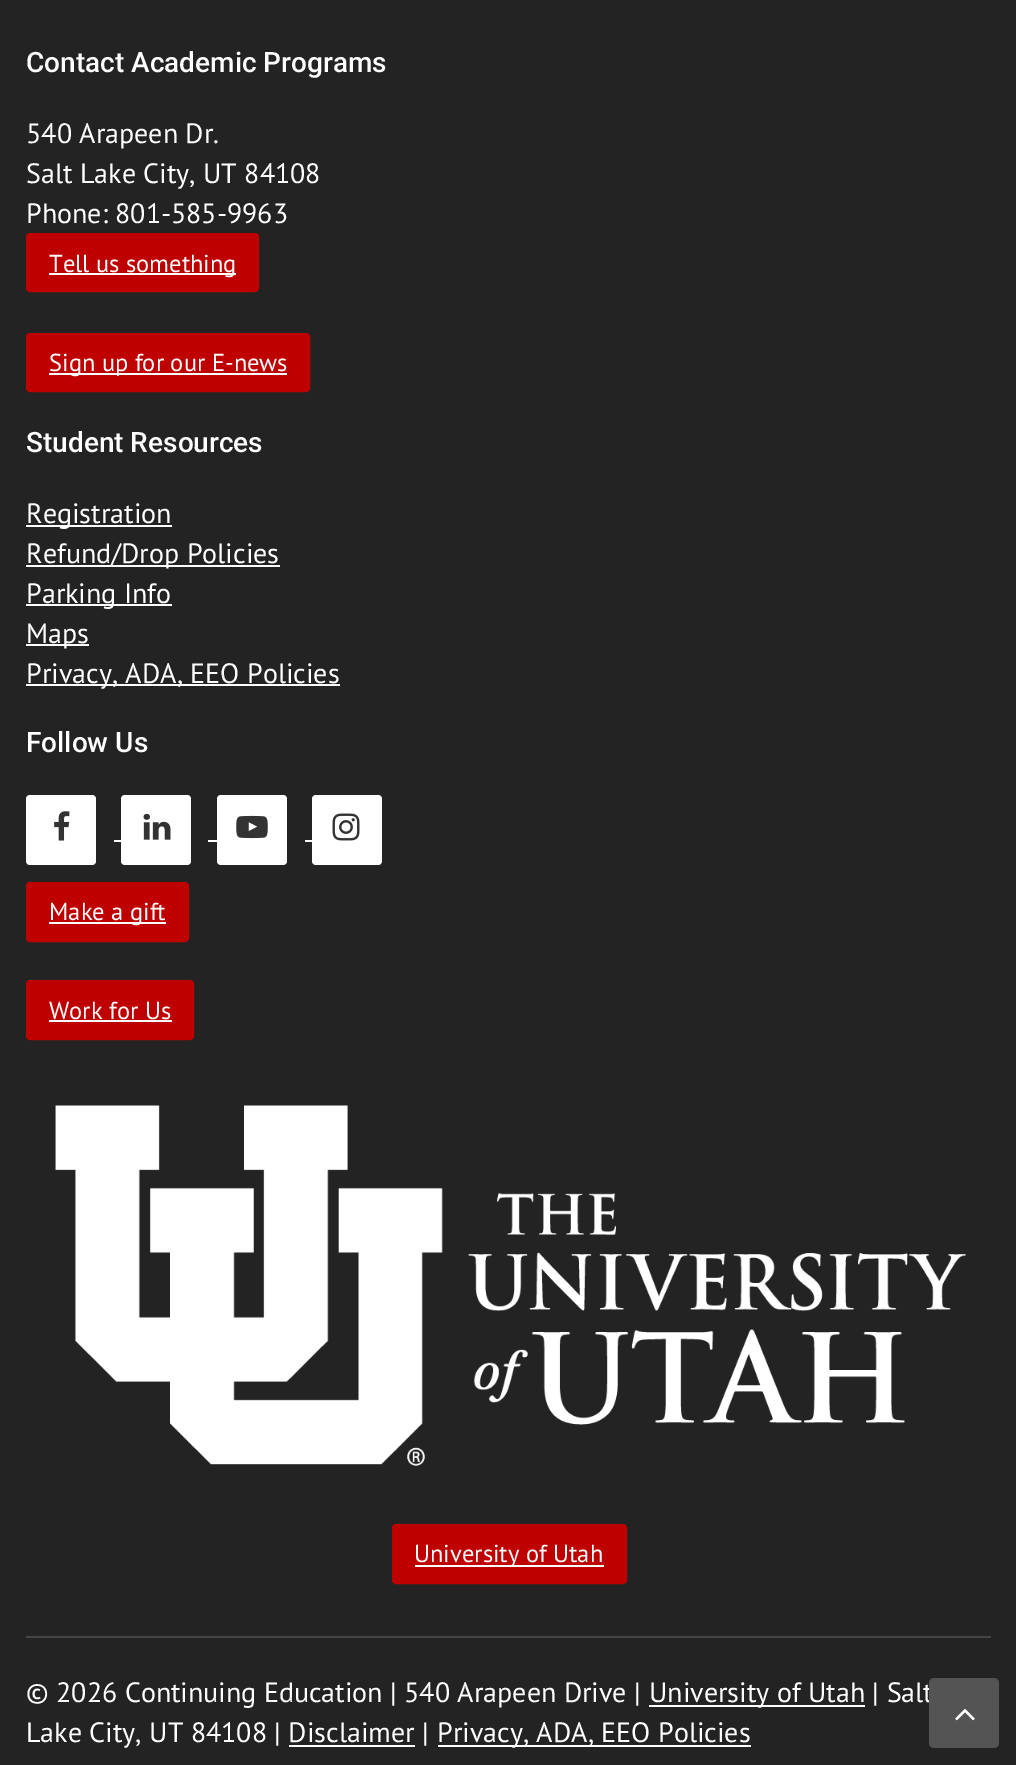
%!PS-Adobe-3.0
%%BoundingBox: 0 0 1016 1765
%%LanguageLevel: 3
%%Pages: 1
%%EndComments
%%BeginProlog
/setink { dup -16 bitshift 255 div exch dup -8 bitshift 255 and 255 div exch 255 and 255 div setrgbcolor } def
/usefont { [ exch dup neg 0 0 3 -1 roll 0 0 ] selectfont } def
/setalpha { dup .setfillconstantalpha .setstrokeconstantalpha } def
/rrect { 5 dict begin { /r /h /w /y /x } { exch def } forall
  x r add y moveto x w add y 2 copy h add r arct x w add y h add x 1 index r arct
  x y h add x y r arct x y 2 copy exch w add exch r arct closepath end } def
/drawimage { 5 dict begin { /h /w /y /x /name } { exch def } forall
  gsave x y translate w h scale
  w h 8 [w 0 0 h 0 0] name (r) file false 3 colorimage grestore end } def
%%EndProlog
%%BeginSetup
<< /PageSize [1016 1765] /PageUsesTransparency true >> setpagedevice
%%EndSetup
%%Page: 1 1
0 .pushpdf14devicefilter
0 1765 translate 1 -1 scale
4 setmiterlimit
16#232323 setink
0 0 1016 1765 rectfill
/Roboto-Medium 28 usefont
16#FFFFFF setink
26 72 moveto (Contact Academic Programs) show
/PTSans-Regular 28 usefont
[
    [(540 Arapeen Dr.) 26 143]
    [(Salt Lake City, UT 84108) 26 183]
    [(Phone: 801-585-9963) 26 223]
] { aload pop moveto show } forall
16#BE0000 setink
27 234 231 57 3 rrect gsave fill grestore
2 setlinewidth
stroke
16#FFFFFF setink
49 273 187 2 rectfill
/PTSans-Regular 24.5 usefont
49 272 moveto (Tell us something) show
16#BE0000 setink
27 334 282 57 3 rrect gsave fill grestore
stroke
16#FFFFFF setink
49 373 238 2 rectfill
49 371 moveto (Sign up for our E-news) show
/Roboto-Medium 28 usefont
26 452 moveto (Student Resources) show
26 525 146 2 rectfill
/PTSans-Regular 28 usefont
26 523 moveto (Registration) show
26 565 254 2 rectfill
26 563 moveto (Refund/Drop Policies) show
26 604 146 2 rectfill
26 603 moveto (Parking Info) show
26 644 63 2 rectfill
26 643 moveto (Maps) show
26 684 314 2 rectfill
26 683 moveto (Privacy, ADA, EEO Policies) show
/Roboto-Medium 28 usefont
26 752 moveto (Follow Us) show
26 795 70 70 4 rrect fill
(img1.raw) 54 811 16 30 drawimage
114 840 7 2 rectfill
121 795 70 70 4 rrect fill
(img2.raw) 143 813 28 27 drawimage
208 840 9 2 rectfill
217 795 70 70 4 rrect fill
(img3.raw) 236 815 32 24 drawimage
305 840 7 2 rectfill
312 795 70 70 4 rrect fill
(img4.raw) 332 813 28 28 drawimage
16#BE0000 setink
27 883 161 58 3 rrect gsave fill grestore
stroke
16#FFFFFF setink
49 922 117 2 rectfill
/PTSans-Regular 24.5 usefont
49 920 moveto (Make a gift) show
16#BE0000 setink
27 981 166 58 3 rrect gsave fill grestore
stroke
16#FFFFFF setink
49 1019 moveto (Work for Us) show
49 1020 123 2 rectfill
(img5.raw) 55 1105 911 361 drawimage
16#BE0000 setink
393 1525 233 58 3 rrect gsave fill grestore
stroke
16#FFFFFF setink
415 1565 189 2 rectfill
414 1562 moveto (University of Utah) show
16#444444 setink
26 1636 965 2 rectfill
/PTSans-Regular 28 usefont
16#FFFFFF setink
26 1702 moveto (© 2026 Continuing Education | 540 Arapeen Drive |) show
649 1705 216 2 rectfill
649 1702 moveto (University of Utah | Salt) show
26 1742 moveto (Lake City, UT 84108 | Disclaimer |) show
438 1745 313 2 rectfill
437 1742 moveto (Privacy, ADA, EEO Policies) show
289 1745 126 2 rectfill
0.99 setalpha
16#555555 setink
929 1678 70 70 5 rrect fill
1 setalpha
(img6.raw) 955 1709 20 12 drawimage
.poppdf14devicefilter showpage
%%EOF
